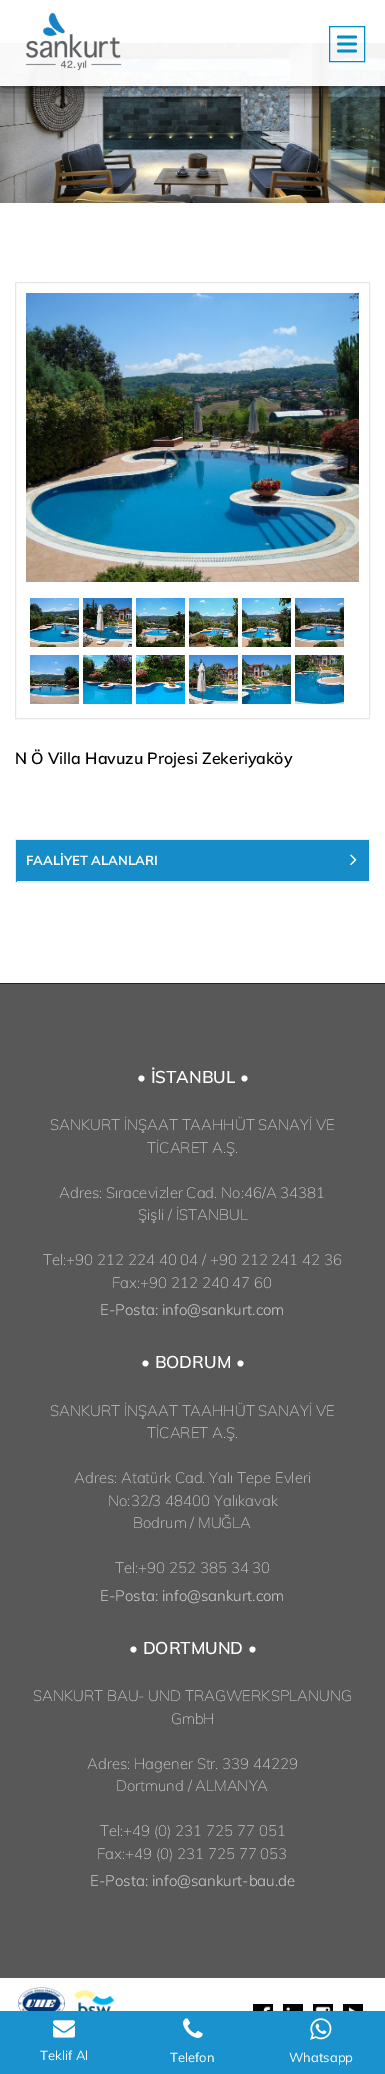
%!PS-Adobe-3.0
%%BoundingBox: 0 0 385 2074
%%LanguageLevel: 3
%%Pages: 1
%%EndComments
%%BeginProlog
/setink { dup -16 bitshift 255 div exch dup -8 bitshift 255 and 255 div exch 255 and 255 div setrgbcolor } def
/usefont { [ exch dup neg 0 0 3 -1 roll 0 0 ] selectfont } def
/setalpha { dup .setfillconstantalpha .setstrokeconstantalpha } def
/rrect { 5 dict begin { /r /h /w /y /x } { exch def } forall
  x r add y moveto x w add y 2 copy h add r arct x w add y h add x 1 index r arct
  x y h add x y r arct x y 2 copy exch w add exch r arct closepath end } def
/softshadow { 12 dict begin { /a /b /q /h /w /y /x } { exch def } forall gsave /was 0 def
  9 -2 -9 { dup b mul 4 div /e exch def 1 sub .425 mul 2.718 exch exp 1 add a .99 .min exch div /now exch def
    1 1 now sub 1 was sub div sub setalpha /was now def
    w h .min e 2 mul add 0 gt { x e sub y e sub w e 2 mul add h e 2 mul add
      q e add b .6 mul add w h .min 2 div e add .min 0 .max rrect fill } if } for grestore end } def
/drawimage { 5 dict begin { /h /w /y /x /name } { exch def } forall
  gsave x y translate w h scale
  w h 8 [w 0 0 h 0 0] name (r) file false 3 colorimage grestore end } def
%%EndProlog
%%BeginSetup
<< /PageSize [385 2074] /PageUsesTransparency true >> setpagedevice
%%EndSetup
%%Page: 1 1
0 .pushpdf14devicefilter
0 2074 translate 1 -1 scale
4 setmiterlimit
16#FFFFFF setink
0 0 385 2074 rectfill
(img2.raw) 0 43 385 160 drawimage
gsave
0 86 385 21 rectclip
16#000000 setink
0 0 385 86 0 10 1 softshadow
grestore
0.95 setalpha
0 43 385 43 rectfill
1 setalpha
(img1.raw) 26 13 96 58 drawimage
16#008BCB setink
329.5 26.5 35 35 rectstroke
2.8 setlinewidth
1 setlinecap
1 setlinejoin
338.5 37 moveto 355.5 37 lineto 338.5 44 moveto 355.5 44 lineto 355.5 51 moveto 338.5 51 lineto stroke
16#E6E6E6 setink
1 setlinewidth
0 setlinecap
0 setlinejoin
15.5 282.5 354 436 rectstroke
(img3.raw) 26 293 333 289 drawimage
(img4.raw) 30 598 49 49 drawimage
(img5.raw) 83 598 49 49 drawimage
(img6.raw) 136 598 49 49 drawimage
(img7.raw) 189 598 49 49 drawimage
(img8.raw) 242 598 49 49 drawimage
(img9.raw) 295 598 49 49 drawimage
(img10.raw) 30 655 49 49 drawimage
(img11.raw) 83 655 49 49 drawimage
(img12.raw) 136 655 49 49 drawimage
(img13.raw) 189 655 49 49 drawimage
(img14.raw) 242 655 49 49 drawimage
(img15.raw) 295 655 49 49 drawimage
/Muli-SemiBold 16 usefont
16#000000 setink
15 764 moveto (N Ö Villa Havuzu Projesi Zekeriyaköy) show
16#EEEEEE setink
15.5 839.5 354 43 rectstroke
[
    [17 840 352 41 16#168CC9]
    [16 881 353 1 16#EEEEEE]
    [16 840 1 42 16#168CC9]
] { aload pop setink rectfill } forall
/Muli-Bold 13 usefont
16#FFFFFF setink
26 865 moveto (FAALİYET ALANLARI) show
(img16.raw) 350 854 7 12 drawimage
16#585858 setink
0 984 385 994 rectfill
16#222222 setink
0 983 385 1 rectfill
/Muli-SemiBold 17 usefont
16#FFFFFF setink
137 1083 moveto (• İSTANBUL •) show
/Muli-ExtraLight 15 usefont
16#CCCCCC setink
[
    [(SANKURT İNŞAAT TAAHHÜT SANAYİ VE) 50 1130]
    [(TİCARET A.Ş.) 147 1153]
    [(Adres: Sıracevizler Cad. No:46/A 34381) 59 1198]
    [(Şişli / İSTANBUL) 138 1220]
    [(Tel:+90 212 224 40 04 / +90 212 241 42 36) 43 1265]
    [(Fax:+90 212 240 47 60) 112 1288]
] { aload pop moveto show } forall
/Muli-Light 15 usefont
100 1315 moveto (E-Posta: info@sankurt.com) show
/Muli-SemiBold 17 usefont
16#FFFFFF setink
141 1368 moveto (• BODRUM •) show
/Muli-ExtraLight 15 usefont
16#CCCCCC setink
[
    [(SANKURT İNŞAAT TAAHHÜT SANAYİ VE) 50 1416]
    [(TİCARET A.Ş.) 147 1438]
    [(Adres: Atatürk Cad. Yalı Tepe Evleri) 74 1483]
    [(No:32/3 48400 Yalıkavak) 108 1506]
    [(Bodrum / MUĞLA) 133 1528]
    [(Tel:+90 252 385 34 30) 115 1573]
] { aload pop moveto show } forall
/Muli-Light 15 usefont
100 1601 moveto (E-Posta: info@sankurt.com) show
/Muli-SemiBold 17 usefont
16#FFFFFF setink
129 1654 moveto (• DORTMUND •) show
/Muli-ExtraLight 15 usefont
16#CCCCCC setink
[
    [(SANKURT BAU- UND TRAGWERKSPLANUNG) 33 1701]
    [(GmbH) 171 1724]
    [(Adres: Hagener Str. 339 44229) 87 1769]
    [(Dortmund / ALMANYA) 116 1791]
    [(Tel:+49 \(0\) 231 725 77 051) 100 1836]
    [(Fax:+49 \(0\) 231 725 77 053) 97 1859]
] { aload pop moveto show } forall
/Muli-Light 15 usefont
90 1886 moveto (E-Posta: info@sankurt-bau.de) show
(img17.raw) 18 1987 47 24 drawimage
(img18.raw) 73 1989 42 22 drawimage
(img19.raw) 253 2004 20 7 drawimage
(img20.raw) 283 2004 20 7 drawimage
(img21.raw) 313 2004 20 7 drawimage
(img22.raw) 343 2004 20 7 drawimage
16#1A92CE setink
0 2011 385 63 rectfill
(img23.raw) 53 2020 22 18 drawimage
/Muli-Regular 13 usefont
16#FFFFFF setink
40 2060 moveto (Teklif Al) show
(img24.raw) 183 2018 20 20 drawimage
170 2062 moveto (Telefon) show
(img25.raw) 310 2018 22 22 drawimage
289 2062 moveto (Whatsapp) show
.poppdf14devicefilter showpage
%%EOF
